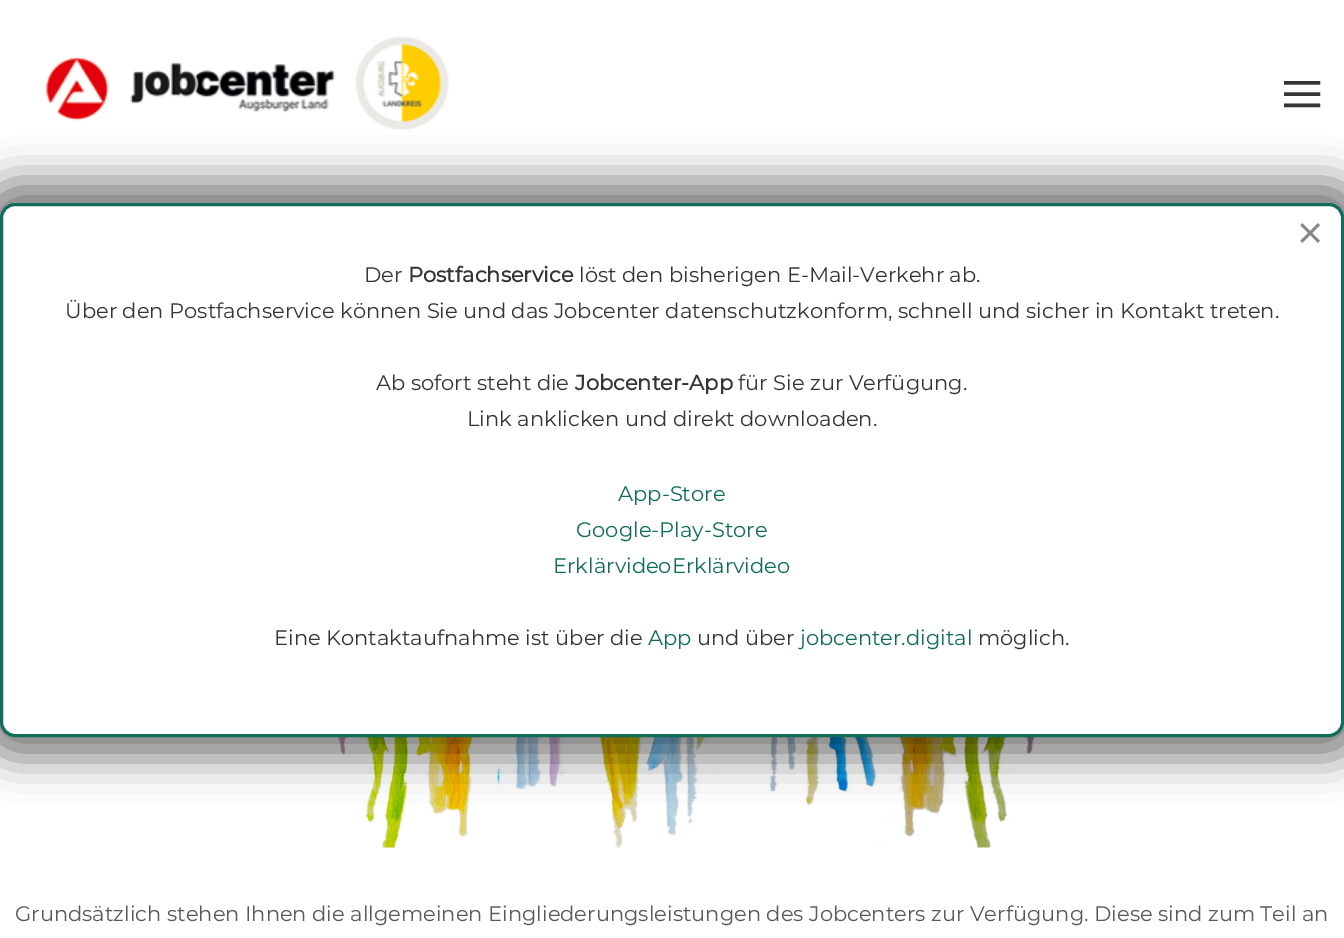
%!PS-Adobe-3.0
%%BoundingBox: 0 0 1344 938
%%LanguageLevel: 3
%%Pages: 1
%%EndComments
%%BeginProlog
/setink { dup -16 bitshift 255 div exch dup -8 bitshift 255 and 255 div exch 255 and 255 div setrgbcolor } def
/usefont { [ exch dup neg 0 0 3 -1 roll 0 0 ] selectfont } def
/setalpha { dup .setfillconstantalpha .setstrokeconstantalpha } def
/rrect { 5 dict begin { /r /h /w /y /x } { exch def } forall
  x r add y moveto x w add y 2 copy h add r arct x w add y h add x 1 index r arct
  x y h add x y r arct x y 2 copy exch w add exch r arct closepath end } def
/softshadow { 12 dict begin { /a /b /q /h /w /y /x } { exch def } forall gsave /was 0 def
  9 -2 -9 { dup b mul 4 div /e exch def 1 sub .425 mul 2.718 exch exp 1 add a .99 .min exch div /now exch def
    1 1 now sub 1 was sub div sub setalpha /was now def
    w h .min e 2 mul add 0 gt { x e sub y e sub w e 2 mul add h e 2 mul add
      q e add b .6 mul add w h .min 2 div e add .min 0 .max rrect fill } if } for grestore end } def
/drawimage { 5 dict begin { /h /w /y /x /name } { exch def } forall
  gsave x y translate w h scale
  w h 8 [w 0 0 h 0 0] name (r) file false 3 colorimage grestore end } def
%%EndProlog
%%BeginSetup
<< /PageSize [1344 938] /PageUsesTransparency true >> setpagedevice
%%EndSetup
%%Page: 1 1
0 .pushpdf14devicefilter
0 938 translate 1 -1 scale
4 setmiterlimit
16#FFFFFF setink
0 0 1344 938 rectfill
(img1.raw) 46 36 403 94 drawimage
/LiberationSerif-Regular 78 usefont
16#353535 setink
1280 120 moveto (≡) show
(img2.raw) 321 737 732 111 drawimage
16#000000 setink
-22 180 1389 579 38 20 0.5 softshadow
16#FFFFFF setink
1.5 204.5 1341 531 13.5 rrect gsave fill grestore
16#116D59 setink
3 setlinewidth
stroke
/LiberationSans-Regular 45 usefont
16#888888 setink
1297 248 moveto (×) show
/Montserrat-Regular 21 usefont
16#353535 setink
364 282 moveto (Der) show
/Montserrat-Bold 21 usefont
408 282 moveto (Postfachservice) show
/Montserrat-Regular 21 usefont
[
    [(löst den bisherigen E-Mail-Verkehr ab.) 579 282]
    [(Über den Postfachservice können Sie und das Jobcenter datenschutzkonform, schnell und sicher in Kontakt treten.) 65 318]
    [(Ab sofort steht die) 376 390]
] { aload pop moveto show } forall
/Montserrat-Bold 21 usefont
575 390 moveto (Jobcenter-App) show
/Montserrat-Regular 21 usefont
738 390 moveto (für Sie zur Verfügung.) show
467 426 moveto (Link anklicken und direkt downloaden.) show
16#116D59 setink
[
    [(App-Store) 618 501]
    [(Google-Play-Store) 576 537]
    [(ErklärvideoErklärvideo) 553 573]
] { aload pop moveto show } forall
16#353535 setink
274 645 moveto (Eine Kontaktaufnahme ist über die) show
16#116D59 setink
648 645 moveto (App) show
16#353535 setink
697 645 moveto (und über) show
16#116D59 setink
800 645 moveto (jobcenter.digital) show
16#353535 setink
978 645 moveto (möglich.) show
16#595959 setink
15 921 moveto (Grundsätzlich stehen Ihnen die allgemeinen Eingliederungsleistungen des Jobcenters zur Verfügung. Diese sind zum Teil an) show
.poppdf14devicefilter showpage
%%EOF
